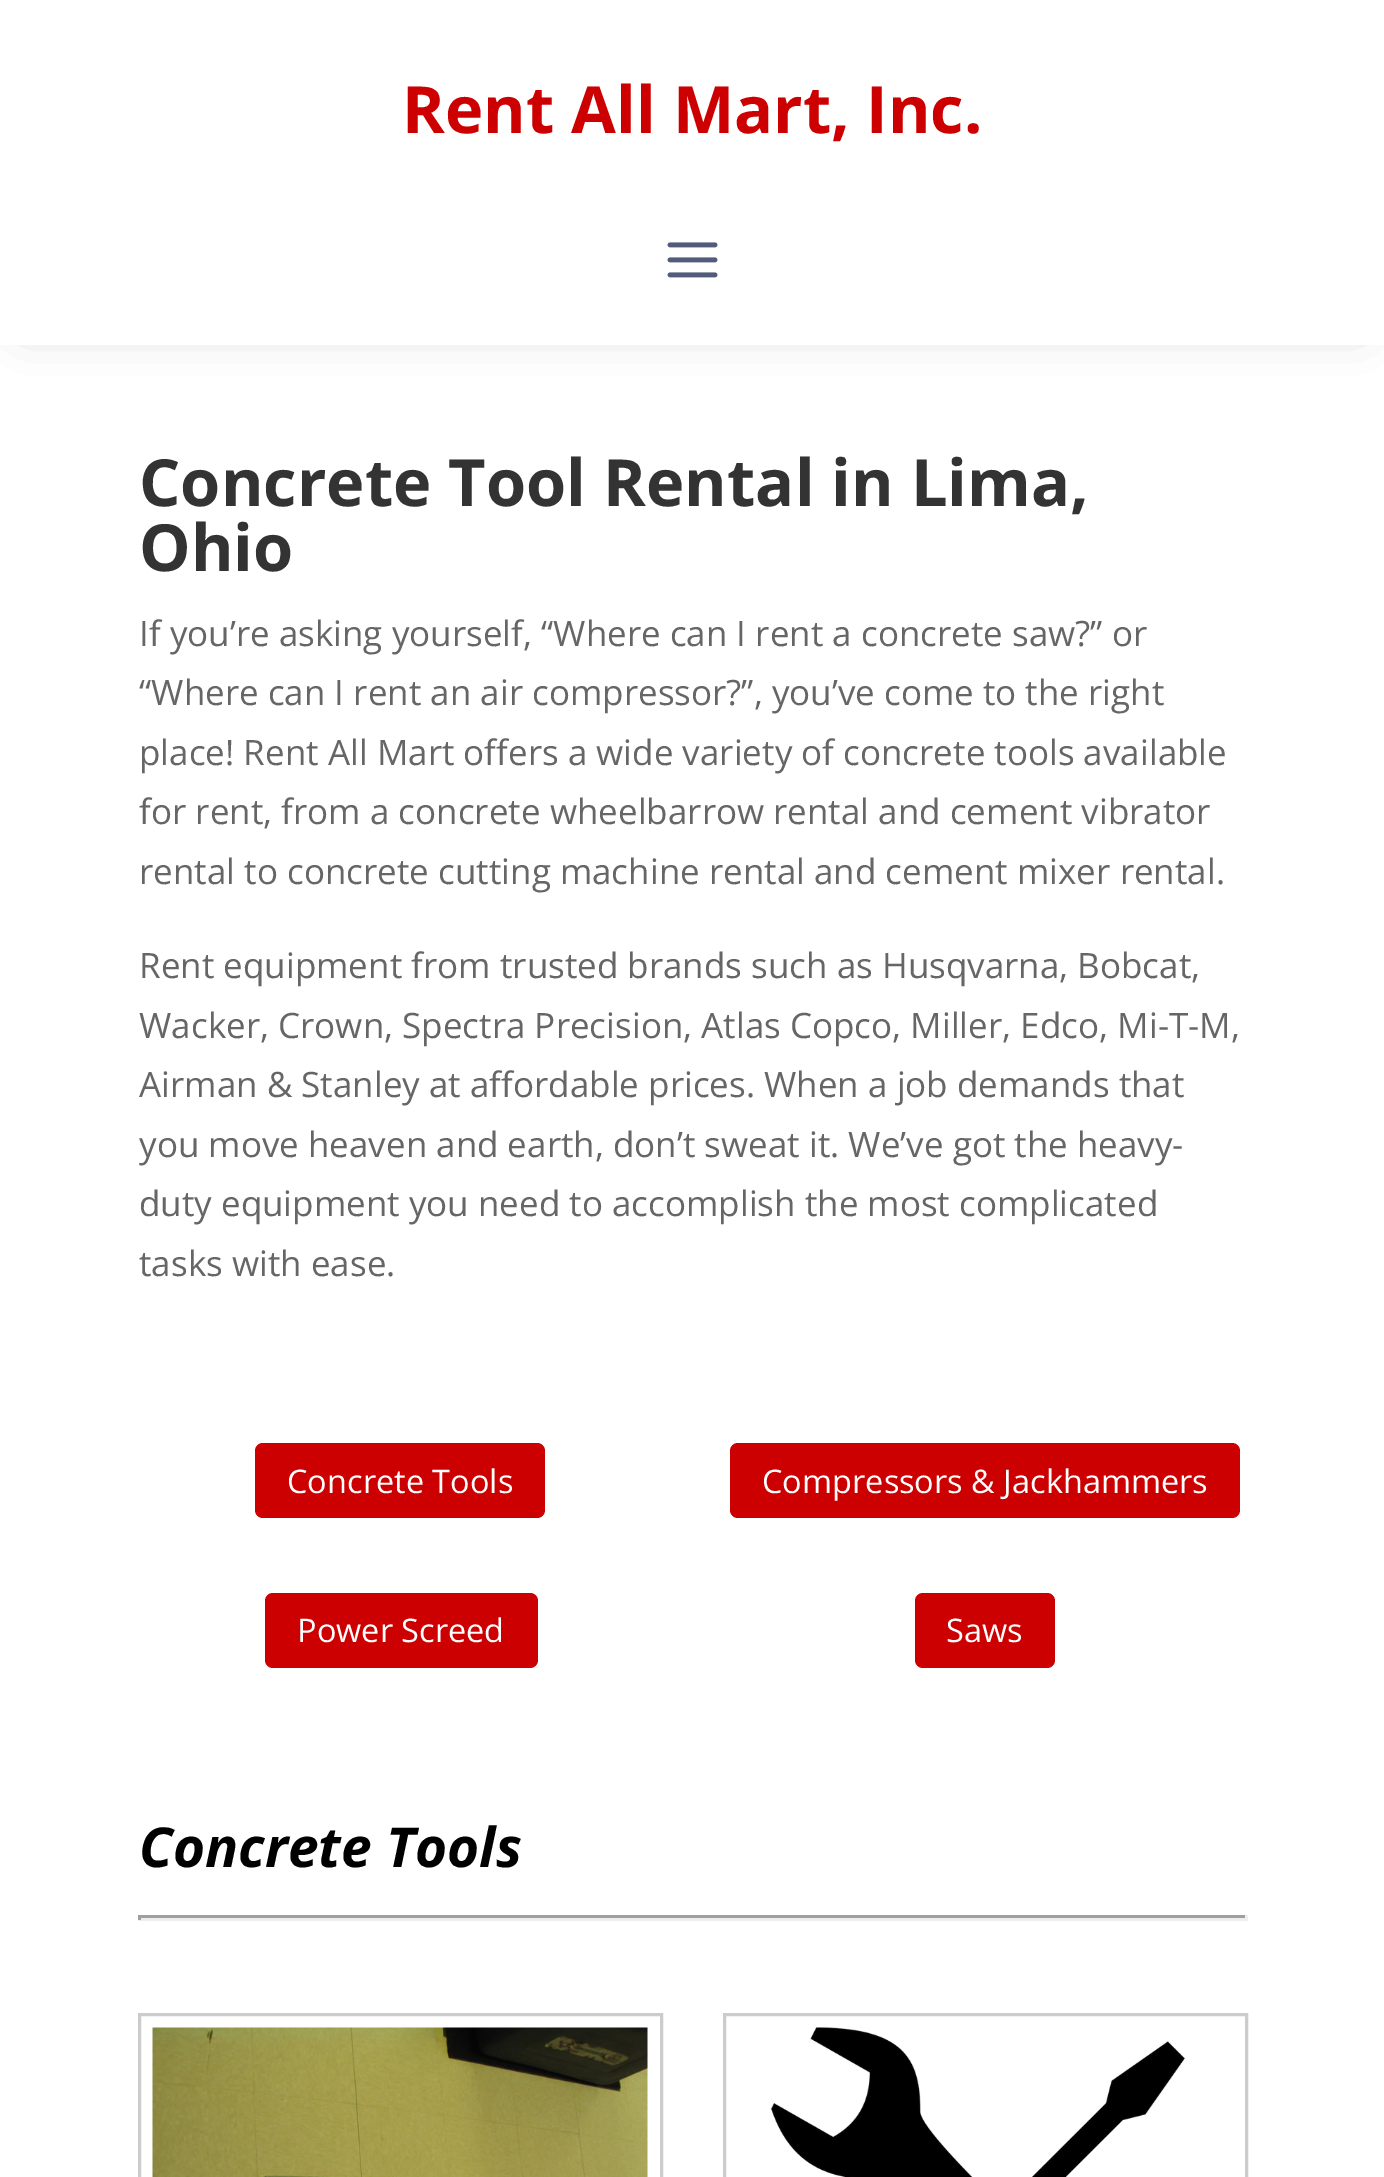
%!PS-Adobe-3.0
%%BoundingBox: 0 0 1384 2177
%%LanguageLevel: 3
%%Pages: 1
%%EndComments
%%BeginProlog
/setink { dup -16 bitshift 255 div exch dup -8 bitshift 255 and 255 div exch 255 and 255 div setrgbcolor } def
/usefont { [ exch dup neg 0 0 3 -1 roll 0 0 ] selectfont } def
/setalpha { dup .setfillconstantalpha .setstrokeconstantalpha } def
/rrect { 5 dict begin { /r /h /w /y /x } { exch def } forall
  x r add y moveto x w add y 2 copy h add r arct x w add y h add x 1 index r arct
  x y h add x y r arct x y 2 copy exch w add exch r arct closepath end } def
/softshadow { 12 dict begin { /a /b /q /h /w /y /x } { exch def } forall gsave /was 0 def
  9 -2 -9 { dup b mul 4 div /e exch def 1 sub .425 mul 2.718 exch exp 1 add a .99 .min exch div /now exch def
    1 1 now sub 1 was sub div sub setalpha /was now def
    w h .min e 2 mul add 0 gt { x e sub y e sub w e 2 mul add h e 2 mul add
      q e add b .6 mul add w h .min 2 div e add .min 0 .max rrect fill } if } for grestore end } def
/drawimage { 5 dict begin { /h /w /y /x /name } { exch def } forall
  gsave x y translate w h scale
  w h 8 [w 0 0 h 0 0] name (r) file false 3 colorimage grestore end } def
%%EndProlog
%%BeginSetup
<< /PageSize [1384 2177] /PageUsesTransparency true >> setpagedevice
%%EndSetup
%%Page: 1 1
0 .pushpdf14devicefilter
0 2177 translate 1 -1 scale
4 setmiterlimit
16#FFFFFF setink
0 0 1384 2177 rectfill
16#000000 setink
25 25 1335 295 0 25 0.3 softshadow
16#FFFFFF setink
0 0 1384 345 rectfill
/OpenSans-Bold 65 usefont
16#CC0000 setink
402 133 moveto (Rent All Mart, Inc.) show
(img1.raw) 667 242 51 36 drawimage
16#333333 setink
139 506 moveto (Concrete Tool Rental in Lima,) show
139 571 moveto (Ohio) show
/OpenSans-Regular 35 usefont
16#666666 setink
[
    [(If you’re asking yourself, “Where can I rent a concrete saw?” or) 139 646]
    [(“Where can I rent an air compressor?”, you’ve come to the right) 139 705]
    [(place! Rent All Mart offers a wide variety of concrete tools available) 139 765]
    [(for rent, from a concrete wheelbarrow rental and cement vibrator) 139 824]
    [(rental to concrete cutting machine rental and cement mixer rental.) 139 884]
    [(Rent equipment from trusted brands such as Husqvarna, Bobcat,) 139 978]
    [(Wacker, Crown, Spectra Precision, Atlas Copco, Miller, Edco, Mi-T-M,) 139 1038]
    [(Airman & Stanley at affordable prices. When a job demands that) 139 1097]
    [(you move heaven and earth, don’t sweat it. We’ve got the heavy-) 139 1157]
    [(duty equipment you need to accomplish the most complicated) 139 1216]
    [(tasks with ease.) 139 1276]
] { aload pop moveto show } forall
16#CC0000 setink
255 1443 290 75 8 rrect fill
/OpenSans-Regular 32.5 usefont
16#FFFFFF setink
287 1493 moveto (Concrete Tools) show
16#CC0000 setink
730 1443 510 75 8 rrect fill
16#FFFFFF setink
762 1493 moveto (Compressors & Jackhammers) show
16#CC0000 setink
265 1593 273 75 8 rrect fill
16#FFFFFF setink
297 1642 moveto (Power Screed) show
16#CC0000 setink
915 1593 140 75 8 rrect fill
16#FFFFFF setink
946 1642 moveto (Saws) show
/OpenSans-BoldItalic 55 usefont
16#000000 setink
139 1867 moveto (Concrete Tools) show
[
    [138 1915 1110 3 16#9F9F9F]
    [1245 1915 3 5 16#EEEEEE]
    [138 1918 1110 3 16#EEEEEE]
    [138 1915 3 5 16#9F9F9F]
] { aload pop setink rectfill } forall
16#CCCCCC setink
3 setlinewidth
139.5 2014.5 522 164 rectstroke
(img2.raw) 152 2027 496 150 drawimage
724.5 2014.5 522 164 rectstroke
(img3.raw) 770 2027 415 150 drawimage
.poppdf14devicefilter showpage
%%EOF
